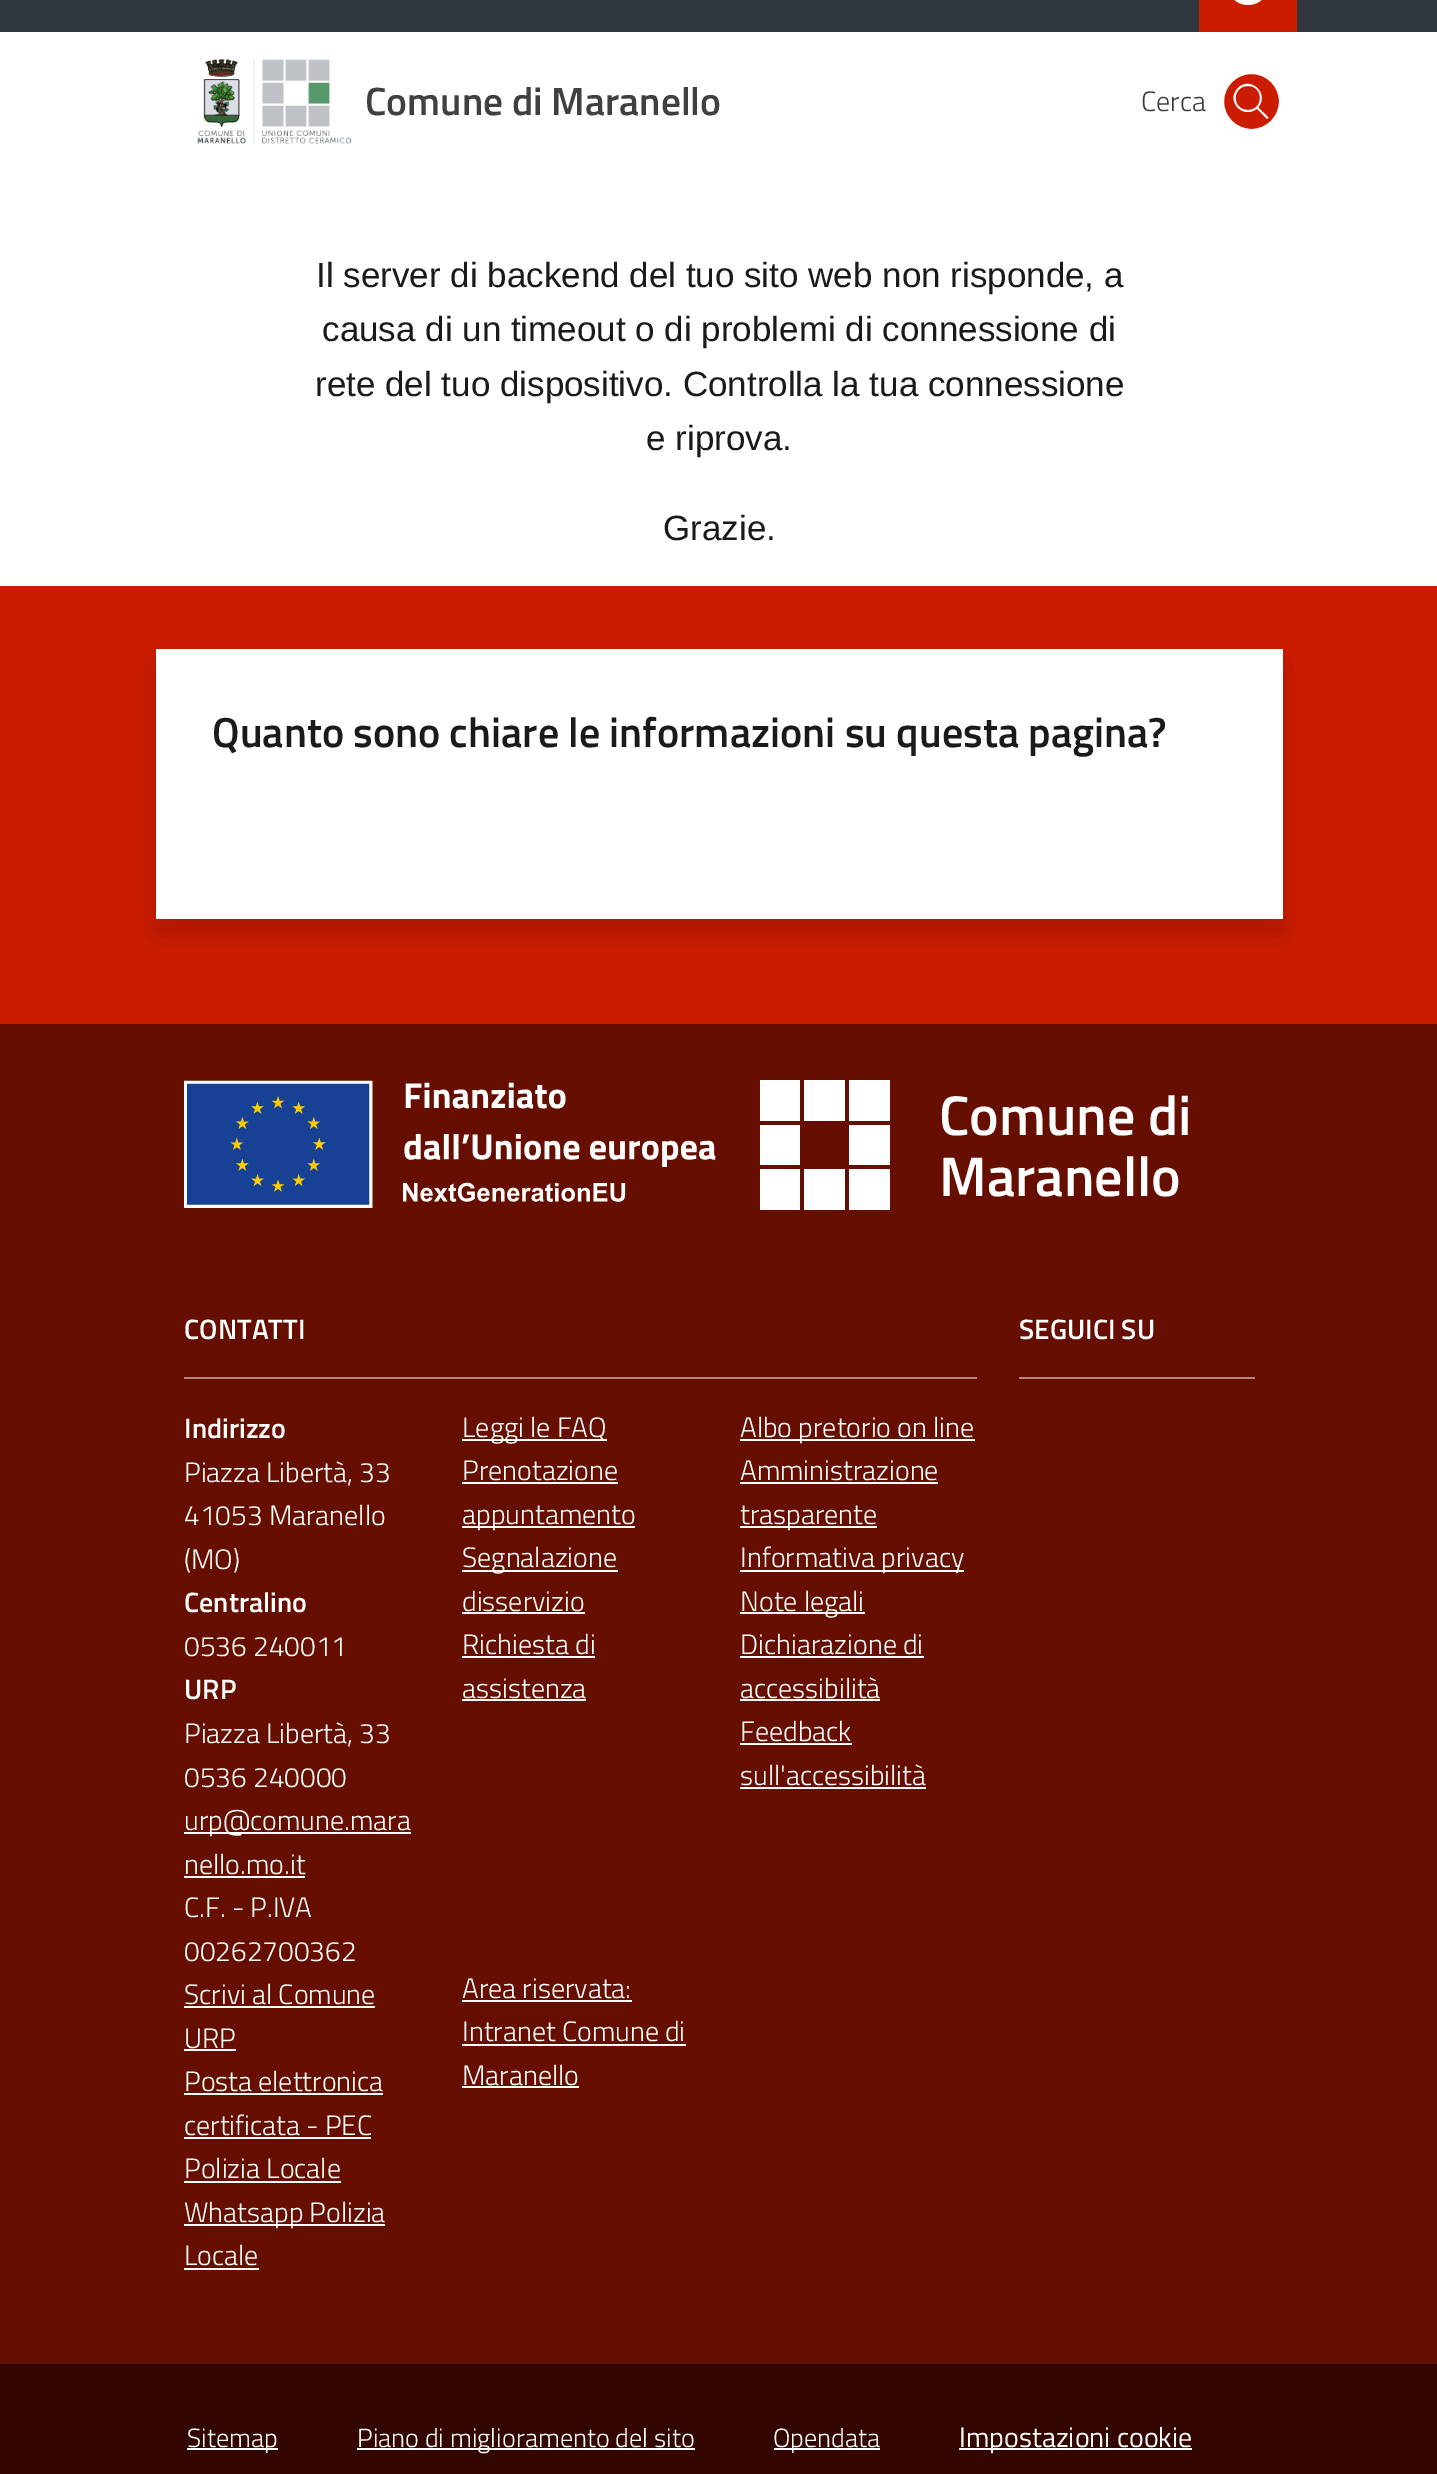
%!PS-Adobe-3.0
%%BoundingBox: 0 0 1437 2474
%%LanguageLevel: 3
%%Pages: 1
%%EndComments
%%BeginProlog
/setink { dup -16 bitshift 255 div exch dup -8 bitshift 255 and 255 div exch 255 and 255 div setrgbcolor } def
/usefont { [ exch dup neg 0 0 3 -1 roll 0 0 ] selectfont } def
/setalpha { dup .setfillconstantalpha .setstrokeconstantalpha } def
/disc { newpath 0 360 arc closepath } def
/rrect { 5 dict begin { /r /h /w /y /x } { exch def } forall
  x r add y moveto x w add y 2 copy h add r arct x w add y h add x 1 index r arct
  x y h add x y r arct x y 2 copy exch w add exch r arct closepath end } def
/softshadow { 12 dict begin { /a /b /q /h /w /y /x } { exch def } forall gsave /was 0 def
  9 -2 -9 { dup b mul 4 div /e exch def 1 sub .425 mul 2.718 exch exp 1 add a .99 .min exch div /now exch def
    1 1 now sub 1 was sub div sub setalpha /was now def
    w h .min e 2 mul add 0 gt { x e sub y e sub w e 2 mul add h e 2 mul add
      q e add b .6 mul add w h .min 2 div e add .min 0 .max rrect fill } if } for grestore end } def
/drawimage { 5 dict begin { /h /w /y /x /name } { exch def } forall
  gsave x y translate w h scale
  w h 8 [w 0 0 h 0 0] name (r) file false 3 colorimage grestore end } def
%%EndProlog
%%BeginSetup
<< /PageSize [1437 2474] /PageUsesTransparency true >> setpagedevice
%%EndSetup
%%Page: 1 1
0 .pushpdf14devicefilter
0 2474 translate 1 -1 scale
4 setmiterlimit
16#FFFFFF setink
0 0 1437 2474 rectfill
16#30373D setink
0 0 1437 32 rectfill
16#CC1C00 setink
1199 0 98 32 rectfill
16#FFFFFF setink
1227 -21 42 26 21 rrect fill
(img1.raw) 197 59 155 85 drawimage
/TitilliumWeb-SemiBold 39.4 usefont
16#404040 setink
365 115 moveto (Comune di Maranello) show
/TitilliumWeb-Light 28 usefont
1141 111 moveto (Cerca) show
16#CC1C00 setink
1251.5 101.5 29.5 disc gsave fill grestore
16#FFFFFF setink
4 setlinewidth
stroke
1268.5 117.5 moveto 1258 107.5 lineto 1270 94 1250.5 75.5 1238 88 curveto 1225 101 1243.5 120 1257 108.5 curveto 1267 119 lineto closepath 1248 110 moveto 1231.5 110 1231.5 86 1248 86 curveto 1264 86 1264 110 1248 110 curveto closepath fill
/LiberationSans-Regular 35 usefont
16#1A1A1A setink
[
    [(Il server di backend del tuo sito web non risponde, a) 316 287]
    [(causa di un timeout o di problemi di connessione di) 322 341]
    [(rete del tuo dispositivo. Controlla la tua connessione) 315 396]
    [(e riprova.) 646 450]
    [(Grazie.) 663 540]
] { aload pop moveto show } forall
16#CC1C00 setink
0 586 1437 438 rectfill
16#000000 setink
156 665 1127 270 0 16 0.15 softshadow
16#FFFFFF setink
156 649 1127 270 rectfill
/TitilliumWeb-SemiBold 42 usefont
16#1A1A1A setink
212 747 moveto (Quanto sono chiare le informazioni su questa pagina?) show
16#660E00 setink
0 1024 1437 1340 rectfill
(img2.raw) 184 1080 532 128 drawimage
16#FFFFFF setink
890 1121 moveto 849 1121 lineto 849 1080 lineto 890 1080 lineto closepath 845 1121 moveto 804 1121 lineto 804 1080 lineto 845 1080 lineto closepath 800 1121 moveto 760 1121 lineto 760 1080 lineto 800 1080 lineto closepath fill
890 1165 moveto 849 1165 lineto 849 1125 lineto 890 1125 lineto closepath 800 1165 moveto 760 1165 lineto 760 1125 lineto 800 1125 lineto closepath 890 1210 moveto 849 1210 lineto 849 1169 lineto 890 1169 lineto closepath 845 1210 moveto 804 1210 lineto 804 1169 lineto 845 1169 lineto closepath 800 1210 moveto 760 1210 lineto 760 1169 lineto 800 1169 lineto closepath fill
/TitilliumWeb-SemiBold 56 usefont
939 1135 moveto (Comune di) show
939 1196 moveto (Maranello) show
16#B38780 setink
184 1377 793 2 rectfill
/TitilliumWeb-SemiBold 28 usefont
16#FFFFFF setink
184 1339 moveto (CONTATTI) show
184 1438 moveto (Indirizzo) show
/TitilliumWeb-Light 28 usefont
[
    [(Piazza Libertà, 33) 184 1482]
    [(41053 Maranello) 184 1525]
    [(\(MO\)) 184 1569]
] { aload pop moveto show } forall
/TitilliumWeb-SemiBold 28 usefont
184 1612 moveto (Centralino) show
/TitilliumWeb-Light 28 usefont
184 1656 moveto (0536 240011) show
/TitilliumWeb-SemiBold 28 usefont
184 1699 moveto (URP) show
/TitilliumWeb-Light 28 usefont
184 1743 moveto (Piazza Libertà, 33) show
184 1787 moveto (0536 240000) show
184 1832 227 2 rectfill
184 1830 moveto (urp@comune.mara) show
184 1874 moveto (nello.mo.it) show
184 1876 121 2 rectfill
[
    [(C.F. - P.IVA) 184 1917]
    [(00262700362) 184 1961]
    [(Scrivi al Comune) 184 2004]
] { aload pop moveto show } forall
184 2006 191 2 rectfill
184 2048 moveto (URP) show
184 2049 52 2 rectfill
184 2091 moveto (Posta elettronica) show
184 2093 199 2 rectfill
184 2135 moveto (certificata - PEC) show
184 2137 187 2 rectfill
184 2178 moveto (Polizia Locale) show
184 2181 157 2 rectfill
184 2224 201 2 rectfill
184 2222 moveto (Whatsapp Polizia) show
184 2265 moveto (Locale) show
184 2268 75 2 rectfill
16#B38780 setink
1019 1377 236 2 rectfill
/TitilliumWeb-SemiBold 28 usefont
16#FFFFFF setink
1019 1339 moveto (SEGUICI SU) show
462 1439 145 2 rectfill
/TitilliumWeb-Light 28 usefont
462 1437 moveto (Leggi le FAQ) show
462 1480 moveto (Prenotazione) show
462 1482 156 2 rectfill
462 1526 173 2 rectfill
462 1524 moveto (appuntamento) show
462 1570 156 2 rectfill
462 1567 moveto (Segnalazione) show
462 1611 moveto (disservizio) show
462 1612 123 2 rectfill
462 1654 moveto (Richiesta di) show
462 1656 133 2 rectfill
462 1698 moveto (assistenza) show
462 1699 124 2 rectfill
462 1998 moveto (Area riservata:) show
462 2000 170 2 rectfill
462 2041 moveto (Intranet Comune di) show
462 2044 224 2 rectfill
462 2085 moveto (Maranello) show
462 2086 117 2 rectfill
740 1439 235 2 rectfill
740 1437 moveto (Albo pretorio on line) show
740 1480 moveto (Amministrazione) show
740 1482 198 2 rectfill
740 1526 137 2 rectfill
740 1524 moveto (trasparente) show
740 1570 224 2 rectfill
740 1567 moveto (Informativa privacy) show
740 1612 125 2 rectfill
740 1611 moveto (Note legali) show
740 1654 moveto (Dichiarazione di) show
740 1656 184 2 rectfill
740 1698 moveto (accessibilità) show
740 1699 140 2 rectfill
740 1741 moveto (Feedback) show
740 1743 112 2 rectfill
740 1785 moveto (sull'accessibilità) show
[
    [740 1787 186 2 16#FFFFFF]
    [0 2364 1437 110 16#330700]
    [187 2448 91 2 16#FFFFFF]
] { aload pop setink rectfill } forall
/TitilliumWeb-Light 26.25 usefont
187 2447 moveto (Sitemap) show
357 2448 338 2 rectfill
357 2447 moveto (Piano di miglioramento del sito) show
774 2448 106 2 rectfill
773 2447 moveto (Opendata) show
959 2448 233 2 rectfill
/TitilliumWeb-Regular 28 usefont
959 2447 moveto (Impostazioni cookie) show
.poppdf14devicefilter showpage
%%EOF
